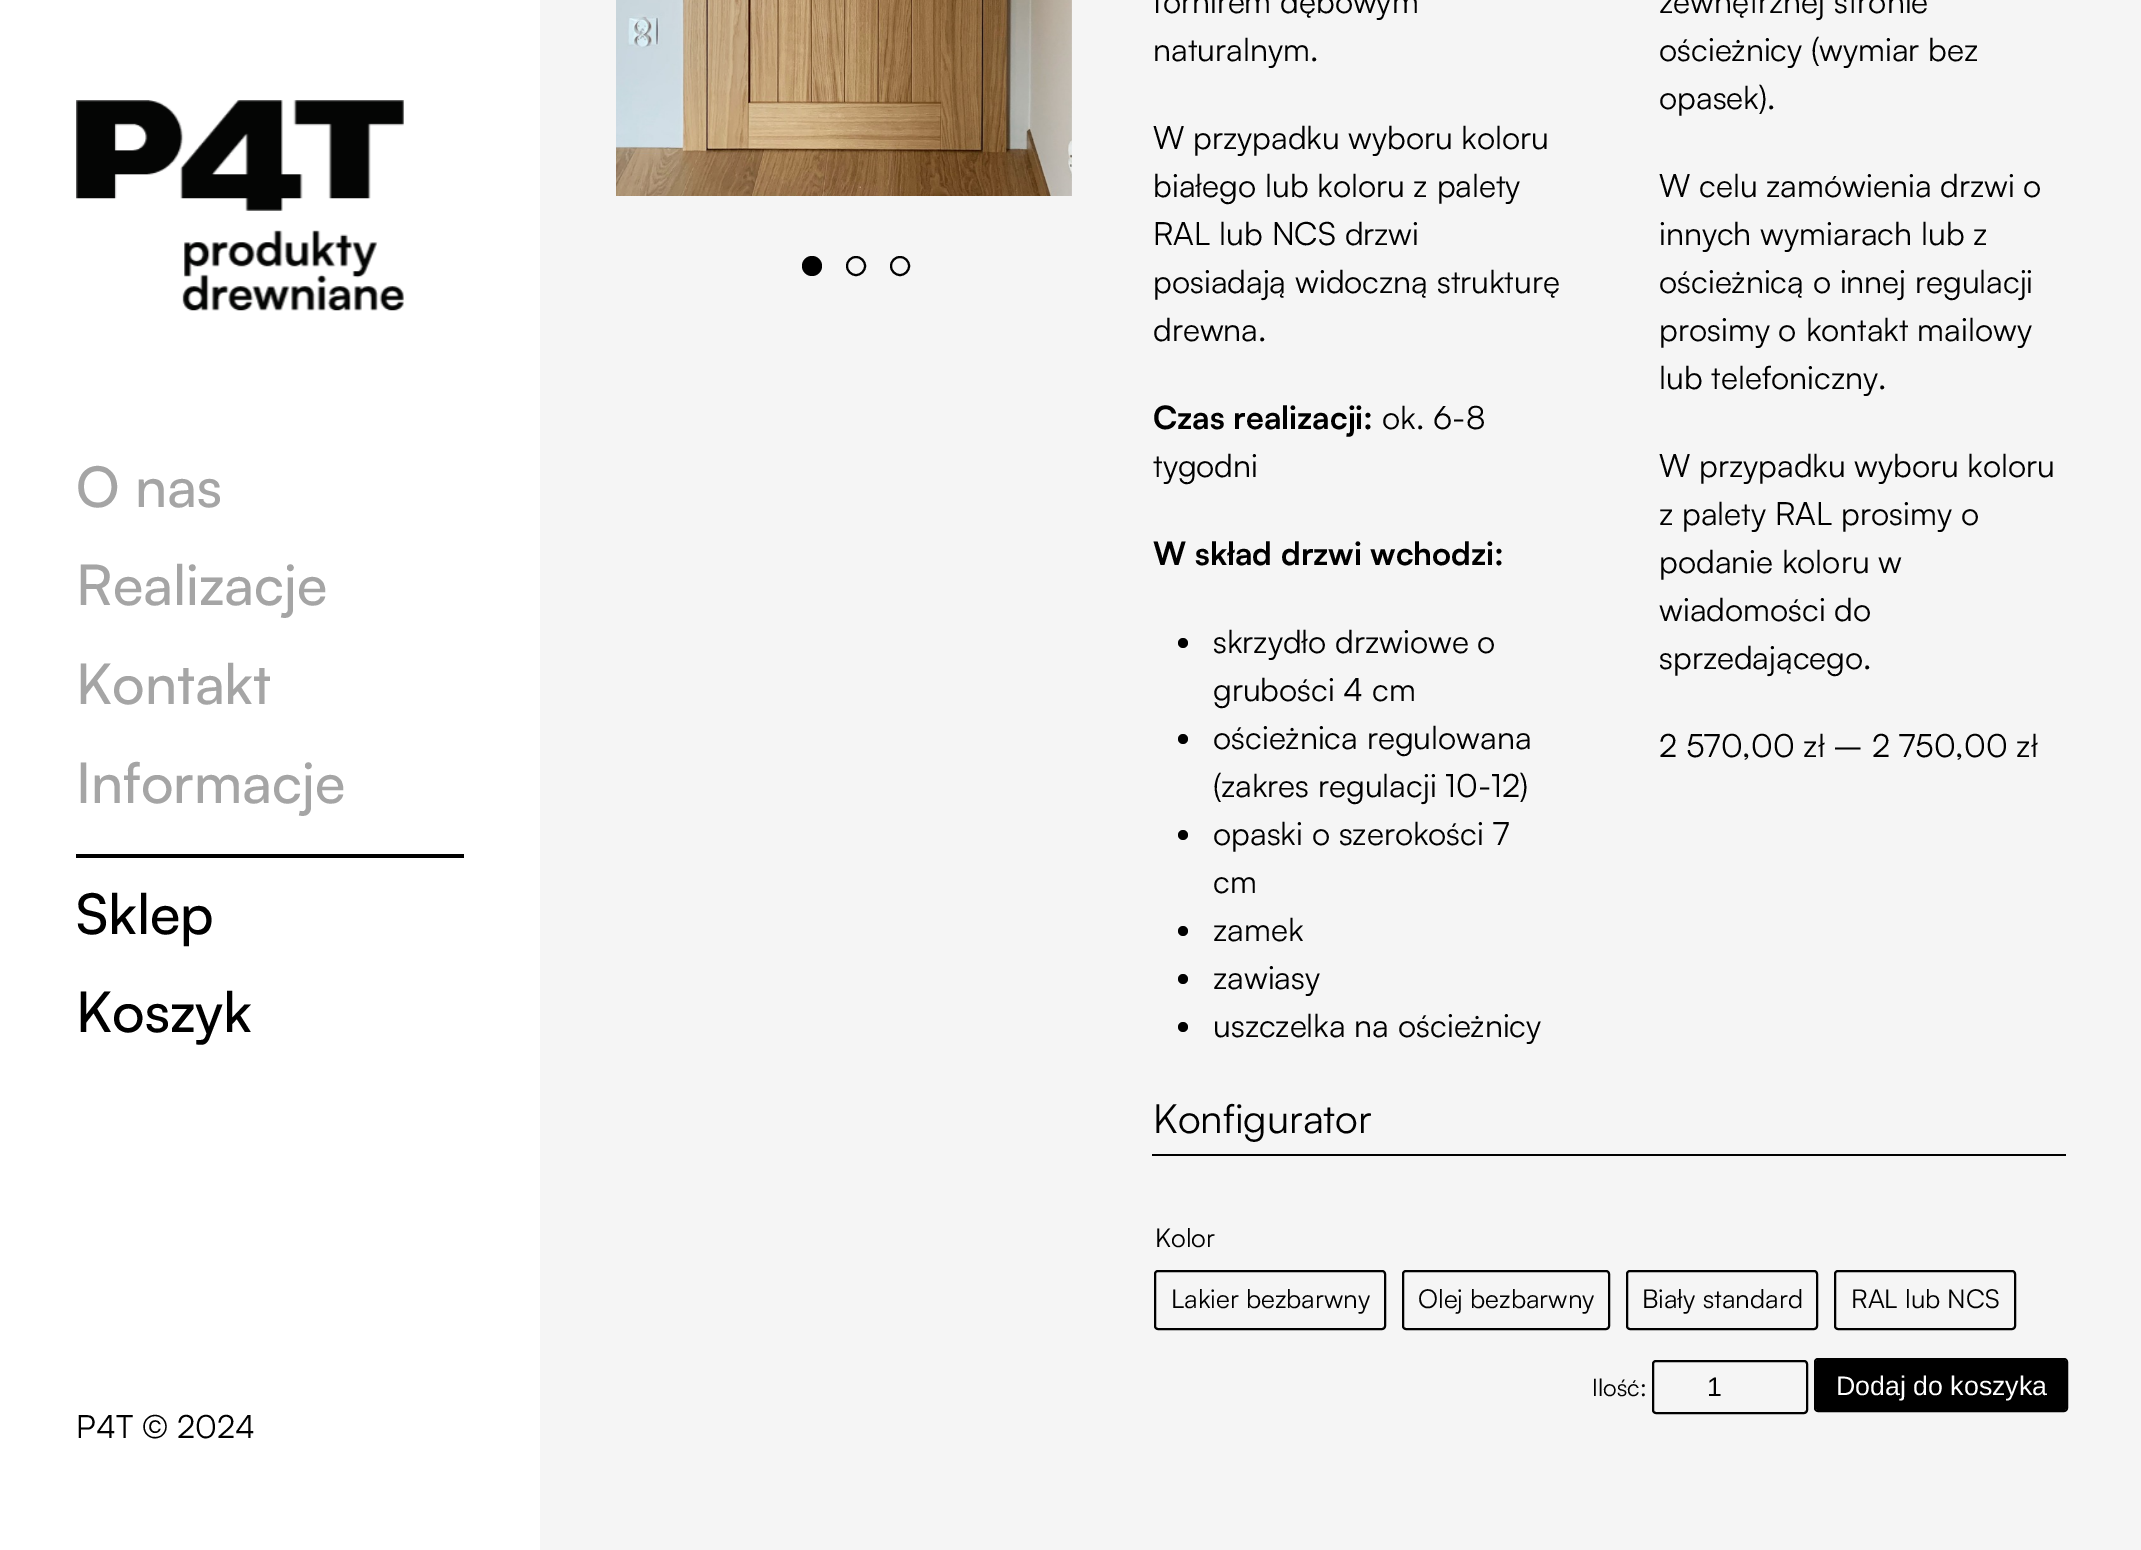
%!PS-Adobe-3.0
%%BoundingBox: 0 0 2141 1550
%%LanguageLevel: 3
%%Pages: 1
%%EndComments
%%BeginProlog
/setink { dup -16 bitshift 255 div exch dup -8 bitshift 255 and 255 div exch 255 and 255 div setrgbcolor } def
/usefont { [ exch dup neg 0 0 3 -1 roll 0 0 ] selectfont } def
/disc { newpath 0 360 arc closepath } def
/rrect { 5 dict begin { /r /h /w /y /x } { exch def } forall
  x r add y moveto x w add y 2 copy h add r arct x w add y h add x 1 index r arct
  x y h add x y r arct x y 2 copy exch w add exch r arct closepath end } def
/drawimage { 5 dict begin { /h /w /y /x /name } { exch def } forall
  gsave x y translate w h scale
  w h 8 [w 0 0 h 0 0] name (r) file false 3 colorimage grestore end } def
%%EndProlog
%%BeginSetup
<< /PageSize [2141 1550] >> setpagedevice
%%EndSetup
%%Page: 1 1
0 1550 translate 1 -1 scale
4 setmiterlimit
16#FFFFFF setink
0 0 2141 1550 rectfill
(img1.raw) 76 100 328 211 drawimage
/Satoshi-Medium 56 usefont
16#A5A5A5 setink
[
    [(O nas) 76 507]
    [(Realizacje) 76 605]
    [(Kontakt) 76 704]
    [(Informacje) 76 803]
] { aload pop moveto show } forall
16#000000 setink
76 854 388 4 rectfill
76 934 moveto (Sklep) show
76 1032 moveto (Koszyk) show
/Satoshi-Regular 32 usefont
76 1438 moveto (P4T © 2024) show
16#F5F5F5 setink
540 0 1601 1550 rectfill
(img2.raw) 616 0 456 196 drawimage
16#000000 setink
812 266 10 disc fill
2 setlinewidth
856 266 9 disc stroke
900 266 9 disc stroke
[
    [(fornirem dębowym) 1153 13]
    [(naturalnym.) 1153 61]
    [(W przypadku wyboru koloru) 1153 149]
    [(białego lub koloru z palety) 1153 197]
    [(RAL lub NCS drzwi) 1153 245]
    [(posiadają widoczną strukturę) 1153 293]
    [(drewna.) 1153 341]
] { aload pop moveto show } forall
/Satoshi-Bold 32 usefont
1153 429 moveto (Czas realizacji:) show
/Satoshi-Regular 32 usefont
1382 429 moveto (ok. 6-8) show
1153 477 moveto (tygodni) show
/Satoshi-Bold 32 usefont
1153 565 moveto (W skład drzwi wchodzi:) show
1183 643 5 disc fill
/Satoshi-Regular 32 usefont
1213 653 moveto (skrzydło drzwiowe o) show
1213 701 moveto (grubości 4 cm) show
1183 739 5 disc fill
1213 749 moveto (ościeżnica regulowana) show
1213 797 moveto (\(zakres regulacji 10-12\)) show
1183 835 5 disc fill
1213 845 moveto (opaski o szerokości 7) show
1213 893 moveto (cm) show
1183 931 5 disc fill
1213 941 moveto (zamek) show
1183 979 5 disc fill
1213 989 moveto (zawiasy) show
1183 1027 5 disc fill
[
    [(uszczelka na ościeżnicy) 1213 1037]
    [(zewnętrznej stronie) 1659 13]
    [(ościeżnicy \(wymiar bez) 1659 61]
    [(opasek\).) 1659 109]
    [(W celu zamówienia drzwi o) 1659 197]
    [(innych wymiarach lub z) 1659 245]
    [(ościeżnicą o innej regulacji) 1659 293]
    [(prosimy o kontakt mailowy) 1659 341]
    [(lub telefoniczny.) 1659 389]
    [(W przypadku wyboru koloru) 1659 477]
    [(z palety RAL prosimy o) 1659 525]
    [(podanie koloru w) 1659 573]
    [(wiadomości do) 1659 621]
    [(sprzedającego.) 1659 669]
    [(2 570,00 zł – 2 750,00 zł) 1659 757]
] { aload pop moveto show } forall
/Satoshi-Regular 40 usefont
1153 1133 moveto (Konfigurator) show
1152 1154 914 2 rectfill
/Satoshi-Regular 26 usefont
1155 1247 moveto (Kolor) show
1155 1271 230 58 3 rrect stroke
1171 1308 moveto (Lakier bezbarwny) show
1403 1271 206 58 3 rrect stroke
1418 1308 moveto (Olej bezbarwny) show
1627 1271 190 58 3 rrect stroke
1642 1308 moveto (Biały standard) show
1835 1271 180 58 3 rrect stroke
1851 1308 moveto (RAL lub NCS) show
/Satoshi-Regular 24 usefont
1592 1396 moveto (Ilość:) show
1653 1361 154 52 3 rrect stroke
/LiberationSans-Regular 26.75 usefont
1707 1396 moveto (1) show
1816 1360 250 50 2 rrect fill
1815 1359 252 52 3 rrect stroke
16#FFFFFF setink
1836 1395 moveto (Dodaj do koszyka) show
showpage
%%EOF
